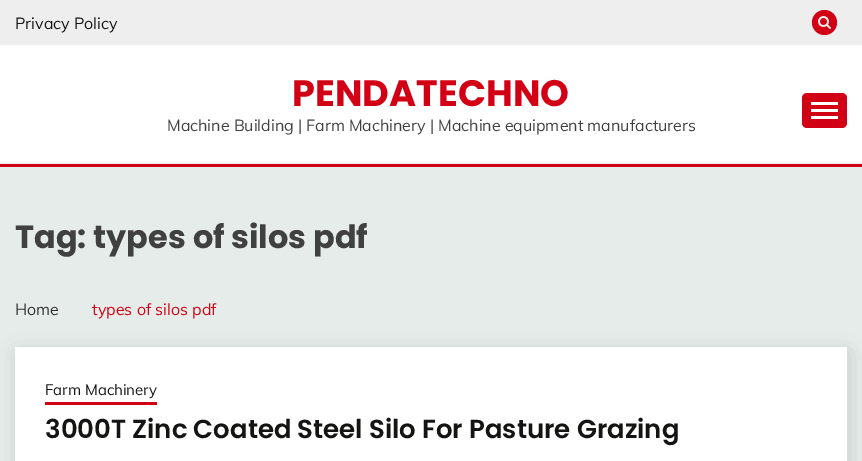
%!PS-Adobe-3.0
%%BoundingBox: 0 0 862 461
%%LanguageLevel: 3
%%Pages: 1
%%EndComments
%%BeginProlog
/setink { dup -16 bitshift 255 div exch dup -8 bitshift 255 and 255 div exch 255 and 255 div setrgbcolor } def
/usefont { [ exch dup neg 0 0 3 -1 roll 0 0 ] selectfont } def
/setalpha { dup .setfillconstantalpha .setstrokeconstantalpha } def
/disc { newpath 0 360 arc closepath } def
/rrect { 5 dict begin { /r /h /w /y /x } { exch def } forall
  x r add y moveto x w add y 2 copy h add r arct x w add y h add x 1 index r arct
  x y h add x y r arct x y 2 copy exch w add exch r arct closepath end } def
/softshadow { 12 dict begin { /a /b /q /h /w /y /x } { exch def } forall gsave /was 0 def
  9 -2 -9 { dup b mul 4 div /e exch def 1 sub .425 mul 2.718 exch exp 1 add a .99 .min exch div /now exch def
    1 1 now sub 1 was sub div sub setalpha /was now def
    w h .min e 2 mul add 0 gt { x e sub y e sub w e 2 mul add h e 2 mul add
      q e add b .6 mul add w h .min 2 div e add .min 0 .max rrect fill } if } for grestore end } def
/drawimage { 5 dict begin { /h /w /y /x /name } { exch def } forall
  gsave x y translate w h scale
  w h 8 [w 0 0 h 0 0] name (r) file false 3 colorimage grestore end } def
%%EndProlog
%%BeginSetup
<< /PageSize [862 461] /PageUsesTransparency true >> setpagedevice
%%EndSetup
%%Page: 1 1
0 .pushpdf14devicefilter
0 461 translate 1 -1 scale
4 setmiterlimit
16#E5ECE9 setink
0 0 862 461 rectfill
16#FFFFFF setink
0 45 862 118 rectfill
16#EEEEEE setink
0 0 862 45 rectfill
/Muli-Regular 16 usefont
16#141413 setink
15 29 moveto (Privacy Policy) show
16#D10014 setink
824.5 22.5 12.5 disc fill
(img1.raw) 818 16 13 13 drawimage
16#EEEEEE setink
0 163 862 1 rectfill
/Poppins-Bold 36.75 usefont
16#D10014 setink
292 106 moveto (PENDATECHNO) show
/Muli-Regular 16 usefont
16#404040 setink
167 131 moveto (Machine Building | Farm Machinery | Machine equipment manufacturers) show
16#D10014 setink
802 93 45 35 5 rrect fill
[
    [811 102 27 3 16#FFFFFF]
    [811 109 27 3 16#FFFFFF]
    [811 116 27 3 16#FFFFFF]
    [0 164 862 3 16#D10014]
] { aload pop setink rectfill } forall
/Poppins-Bold 32 usefont
16#404040 setink
15 248 moveto (Tag: types of silos pdf) show
/Muli-Regular 16 usefont
16#333333 setink
15 315 moveto (Home) show
16#D10014 setink
92 315 moveto (types of silos pdf) show
16#000000 setink
17 352 832 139 0 10 0.14 softshadow
16#FFFFFF setink
15 347 832 114 rectfill
/Muli-Regular 15 usefont
16#141413 setink
45 395 moveto (Farm Machinery) show
16#D10014 setink
45 402 112 3 rectfill
/Poppins-SemiBold 26 usefont
16#141413 setink
45 438 moveto (3000T Zinc Coated Steel Silo For Pasture Grazing) show
.poppdf14devicefilter showpage
%%EOF
